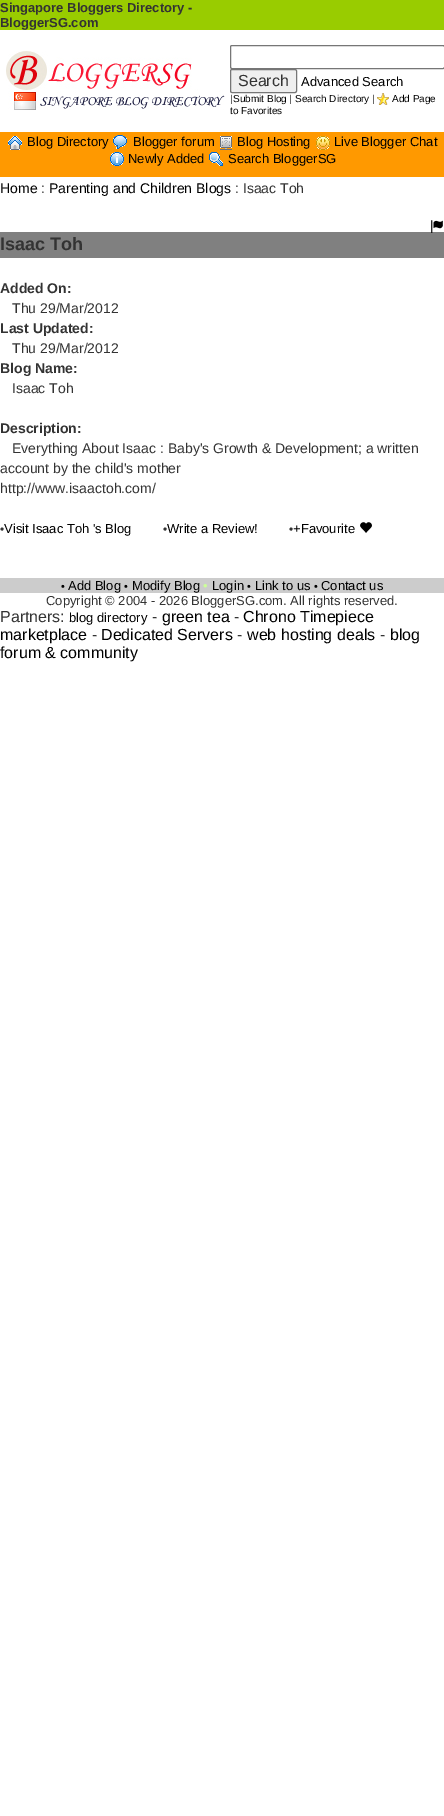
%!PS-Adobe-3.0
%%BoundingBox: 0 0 444 1816
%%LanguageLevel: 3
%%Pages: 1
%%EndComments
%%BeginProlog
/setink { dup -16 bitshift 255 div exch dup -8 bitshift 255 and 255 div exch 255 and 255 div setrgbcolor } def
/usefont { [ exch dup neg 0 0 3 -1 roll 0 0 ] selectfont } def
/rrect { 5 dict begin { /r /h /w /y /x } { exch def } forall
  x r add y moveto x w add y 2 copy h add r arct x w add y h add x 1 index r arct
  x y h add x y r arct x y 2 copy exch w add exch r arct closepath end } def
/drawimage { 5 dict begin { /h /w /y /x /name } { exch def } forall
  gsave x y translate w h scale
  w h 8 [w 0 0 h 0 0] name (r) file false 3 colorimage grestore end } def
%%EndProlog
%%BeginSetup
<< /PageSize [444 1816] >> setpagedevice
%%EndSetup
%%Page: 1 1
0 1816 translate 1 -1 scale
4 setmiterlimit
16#FFFFFF setink
0 0 444 1816 rectfill
16#99CC00 setink
0 0 444 30 rectfill
/LiberationSans-Bold 13 usefont
16#333333 setink
0 12 moveto (Singapore Bloggers Directory -) show
0 27 moveto (BloggerSG.com) show
(img1.raw) 6 51 219 59 drawimage
16#767676 setink
230.5 45.5 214 23 1.5 rrect stroke
16#EFEFEF setink
230.5 69.5 66 23 1.5 rrect gsave fill grestore
16#767676 setink
stroke
/LiberationSans-Regular 16 usefont
16#333333 setink
238 86 moveto (Search) show
/LiberationSans-Regular 13 usefont
16#000000 setink
301 86 moveto (Advanced Search) show
/LiberationSans-Regular 10 usefont
16#333333 setink
230 102 moveto (|) show
16#000000 setink
233 102 moveto (Submit Blog) show
16#333333 setink
289 102 moveto (|) show
16#000000 setink
295 102 moveto (Search Directory) show
16#333333 setink
372 102 moveto (|) show
(img2.raw) 377 93 12 12 drawimage
16#000000 setink
392 102 moveto (Add Page) show
230 114 moveto (to Favorites) show
16#FF9900 setink
0 132 444 45 rectfill
(img3.raw) 8 136 14 14 drawimage
/LiberationSans-Regular 13 usefont
16#000000 setink
27 146 moveto (Blog Directory) show
(img4.raw) 113 135 14 14 drawimage
133 146 moveto (Blogger forum) show
(img5.raw) 220 136 12 14 drawimage
237 146 moveto (Blog Hosting) show
(img6.raw) 316 136 14 14 drawimage
334 146 moveto (Live Blogger Chat) show
(img7.raw) 110 152 14 14 drawimage
128 163 moveto (Newly Added) show
(img8.raw) 209 152 14 14 drawimage
228 163 moveto (Search BloggerSG) show
/LiberationSans-Regular 14 usefont
0 193 moveto (Home) show
16#333333 setink
41 193 moveto (:) show
16#000000 setink
49 193 moveto (Parenting and Children Blogs) show
16#333333 setink
235 193 moveto (: Isaac Toh) show
16#808080 setink
0 232 444 26 rectfill
(img9.raw) 431 220 12 13 drawimage
/LiberationSans-Bold 18 usefont
16#333333 setink
0 250 moveto (Isaac Toh) show
/LiberationSans-Bold 14 usefont
0 293 moveto (Added On:) show
/LiberationSans-Regular 14 usefont
12 313 moveto (Thu 29/Mar/2012) show
/LiberationSans-Bold 14 usefont
0 333 moveto (Last Updated:) show
/LiberationSans-Regular 14 usefont
12 353 moveto (Thu 29/Mar/2012) show
/LiberationSans-Bold 14 usefont
0 373 moveto (Blog Name:) show
/LiberationSans-Regular 14 usefont
12 393 moveto (Isaac Toh) show
/LiberationSans-Bold 14 usefont
0 433 moveto (Description:) show
/LiberationSans-Regular 14 usefont
[
    [(Everything About Isaac : Baby's Growth & Development; a written) 12 453]
    [(account by the child's mother) 0 473]
    [(http://www.isaactoh.com/) 0 493]
] { aload pop moveto show } forall
/LiberationSans-Regular 12 usefont
0 533 moveto (•) show
/LiberationSans-Regular 13 usefont
16#000000 setink
4 533 moveto (Visit Isaac Toh 's Blog) show
/LiberationSans-Regular 12 usefont
16#333333 setink
163 533 moveto (•) show
/LiberationSans-Regular 13 usefont
16#000000 setink
167 533 moveto (Write a Review!) show
/LiberationSans-Regular 12 usefont
16#333333 setink
289 533 moveto (•) show
/LiberationSans-Regular 13 usefont
16#000000 setink
293 533 moveto (+Favourite) show
(img10.raw) 360 522 12 11 drawimage
16#CCCCCC setink
0 578 444 15 rectfill
/LiberationSans-Regular 11 usefont
16#000000 setink
61 590 moveto (•) show
/LiberationSans-Regular 13 usefont
68 590 moveto (Add Blog) show
/LiberationSans-Regular 11 usefont
124 590 moveto (•) show
/LiberationSans-Regular 13 usefont
132 590 moveto (Modify Blog) show
16#CCFF99 setink
203 590 moveto (•) show
16#000000 setink
212 590 moveto (Login) show
/LiberationSans-Regular 11 usefont
247 590 moveto (•) show
/LiberationSans-Regular 13 usefont
255 590 moveto (Link to us) show
/LiberationSans-Regular 11 usefont
314 590 moveto (•) show
/LiberationSans-Regular 13 usefont
321 590 moveto (Contact us) show
16#333333 setink
46 605 moveto (Copyright © 2004 - 2026 BloggerSG.com. All rights reserved.) show
/LiberationSans-Regular 16 usefont
0 622 moveto (Partners:) show
/LiberationSans-Regular 13 usefont
16#000000 setink
69 622 moveto (blog directory) show
/LiberationSans-Regular 16 usefont
16#333333 setink
152 622 moveto (-) show
16#000000 setink
162 622 moveto (green tea) show
16#333333 setink
234 622 moveto (-) show
16#000000 setink
243 622 moveto (Chrono Timepiece) show
0 640 moveto (marketplace) show
16#333333 setink
92 640 moveto (-) show
16#000000 setink
101 640 moveto (Dedicated Servers) show
16#333333 setink
237 640 moveto (-) show
16#000000 setink
247 640 moveto (web hosting deals) show
16#333333 setink
380 640 moveto (-) show
16#000000 setink
390 640 moveto (blog) show
0 658 moveto (forum & community) show
showpage
%%EOF
